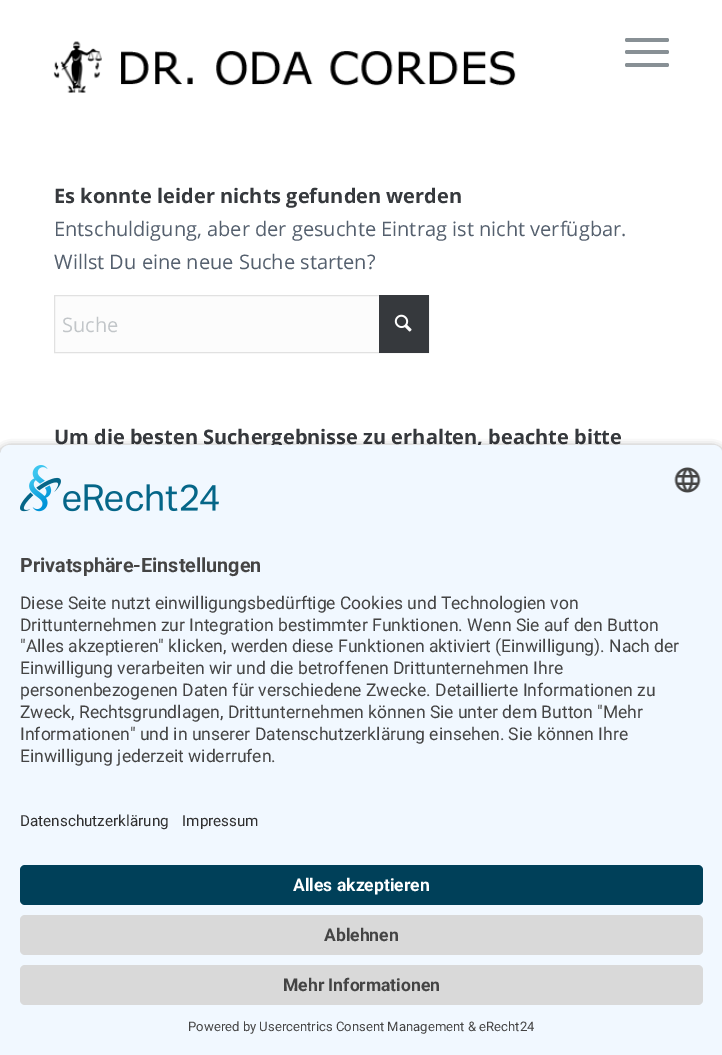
%!PS-Adobe-3.0
%%BoundingBox: 0 0 722 1055
%%LanguageLevel: 3
%%Pages: 1
%%EndComments
%%BeginProlog
/setink { dup -16 bitshift 255 div exch dup -8 bitshift 255 and 255 div exch 255 and 255 div setrgbcolor } def
/usefont { [ exch dup neg 0 0 3 -1 roll 0 0 ] selectfont } def
/setalpha { dup .setfillconstantalpha .setstrokeconstantalpha } def
/rrect { 5 dict begin { /r /h /w /y /x } { exch def } forall
  x r add y moveto x w add y 2 copy h add r arct x w add y h add x 1 index r arct
  x y h add x y r arct x y 2 copy exch w add exch r arct closepath end } def
/softshadow { 12 dict begin { /a /b /q /h /w /y /x } { exch def } forall gsave /was 0 def
  9 -2 -9 { dup b mul 4 div /e exch def 1 sub .425 mul 2.718 exch exp 1 add a .99 .min exch div /now exch def
    1 1 now sub 1 was sub div sub setalpha /was now def
    w h .min e 2 mul add 0 gt { x e sub y e sub w e 2 mul add h e 2 mul add
      q e add b .6 mul add w h .min 2 div e add .min 0 .max rrect fill } if } for grestore end } def
/drawimage { 5 dict begin { /h /w /y /x /name } { exch def } forall
  gsave x y translate w h scale
  w h 8 [w 0 0 h 0 0] name (r) file false 3 colorimage grestore end } def
%%EndProlog
%%BeginSetup
<< /PageSize [722 1055] /PageUsesTransparency true >> setpagedevice
%%EndSetup
%%Page: 1 1
0 .pushpdf14devicefilter
0 1055 translate 1 -1 scale
4 setmiterlimit
16#FFFFFF setink
0 0 722 1055 rectfill
(img1.raw) 53 41 463 52 drawimage
16#889095 setink
625 50 44 4 2 rrect fill
625 38 44 4 2 rrect fill
625 63 44 4 2 rrect fill
/OpenSans-Bold 20 usefont
16#36393D setink
54 203 moveto (Es konnte leider nichts gefunden werden) show
/OpenSans-Regular 20 usefont
16#55606E setink
54 236 moveto (Entschuldigung, aber der gesuchte Eintrag ist nicht verfügbar.) show
54 269 moveto (Willst Du eine neue Suche starten?) show
16#FCFCFC setink
55 296 324 56 rectfill
16#E1E1E1 setink
54.5 295.5 374 57 rectstroke
16#36393D setink
379 295 50 58 rectfill
16#C2C6C9 setink
62 332 moveto (Suche) show
(img2.raw) 394 314 18 18 drawimage
/OpenSans-Bold 20 usefont
16#36393D setink
54 444 moveto (Um die besten Suchergebnisse zu erhalten, beachte bitte) show
16#000000 setink
0 449 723 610 10 4.5 0.8 softshadow
16#F1F8FF setink
10 445 moveto 713 445 lineto 718.5 445 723 449.5 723 455 curveto 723 793 lineto 0 793 lineto 0 455 lineto 0 449.5 4.5 445 10 445 curveto closepath fill
(img3.raw) 20 465 199 47 drawimage
(img4.raw) 674 467 27 26 drawimage
/Roboto-Bold 19.75 usefont
16#444444 setink
20 572 moveto (Privatsphäre-Einstellungen) show
/Roboto-Regular 17.5 usefont
[
    [(Diese Seite nutzt einwilligungsbedürftige Cookies und Technologien von) 20 609]
    [(Drittunternehmen zur Integration bestimmter Funktionen. Wenn Sie auf den Button) 20 631]
    [("Alles akzeptieren" klicken, werden diese Funktionen aktiviert \(Einwilligung\). Nach der) 20 652]
    [(Einwilligung verarbeiten wir und die betroffenen Drittunternehmen Ihre) 20 674]
    [(personenbezogenen Daten für verschiedene Zwecke. Detaillierte Informationen zu) 20 696]
    [(Zweck, Rechtsgrundlagen, Drittunternehmen können Sie unter dem Button "Mehr) 20 718]
    [(Informationen" und in unserer Datenschutzerklärung einsehen. Sie können Ihre) 20 740]
    [(Einwilligung jederzeit widerrufen.) 20 762]
] { aload pop moveto show } forall
16#F1F8FF setink
0 793 722 262 rectfill
/Roboto-Regular 15.25 usefont
16#303030 setink
20 826 moveto (Datenschutzerklärung) show
182 826 moveto (Impressum) show
16#004059 setink
20 865 683 40 5 rrect fill
/Roboto-Bold 17.5 usefont
16#FFFFFF setink
293 891 moveto (Alles akzeptieren) show
16#D9D9D9 setink
20 915 683 40 5 rrect fill
16#444444 setink
324 941 moveto (Ablehnen) show
16#D9D9D9 setink
20 965 683 40 5 rrect fill
16#444444 setink
283 991 moveto (Mehr Informationen) show
/Roboto-Regular 13.1 usefont
188 1031 moveto (Powered by Usercentrics Consent Management & eRecht24) show
.poppdf14devicefilter showpage
%%EOF
